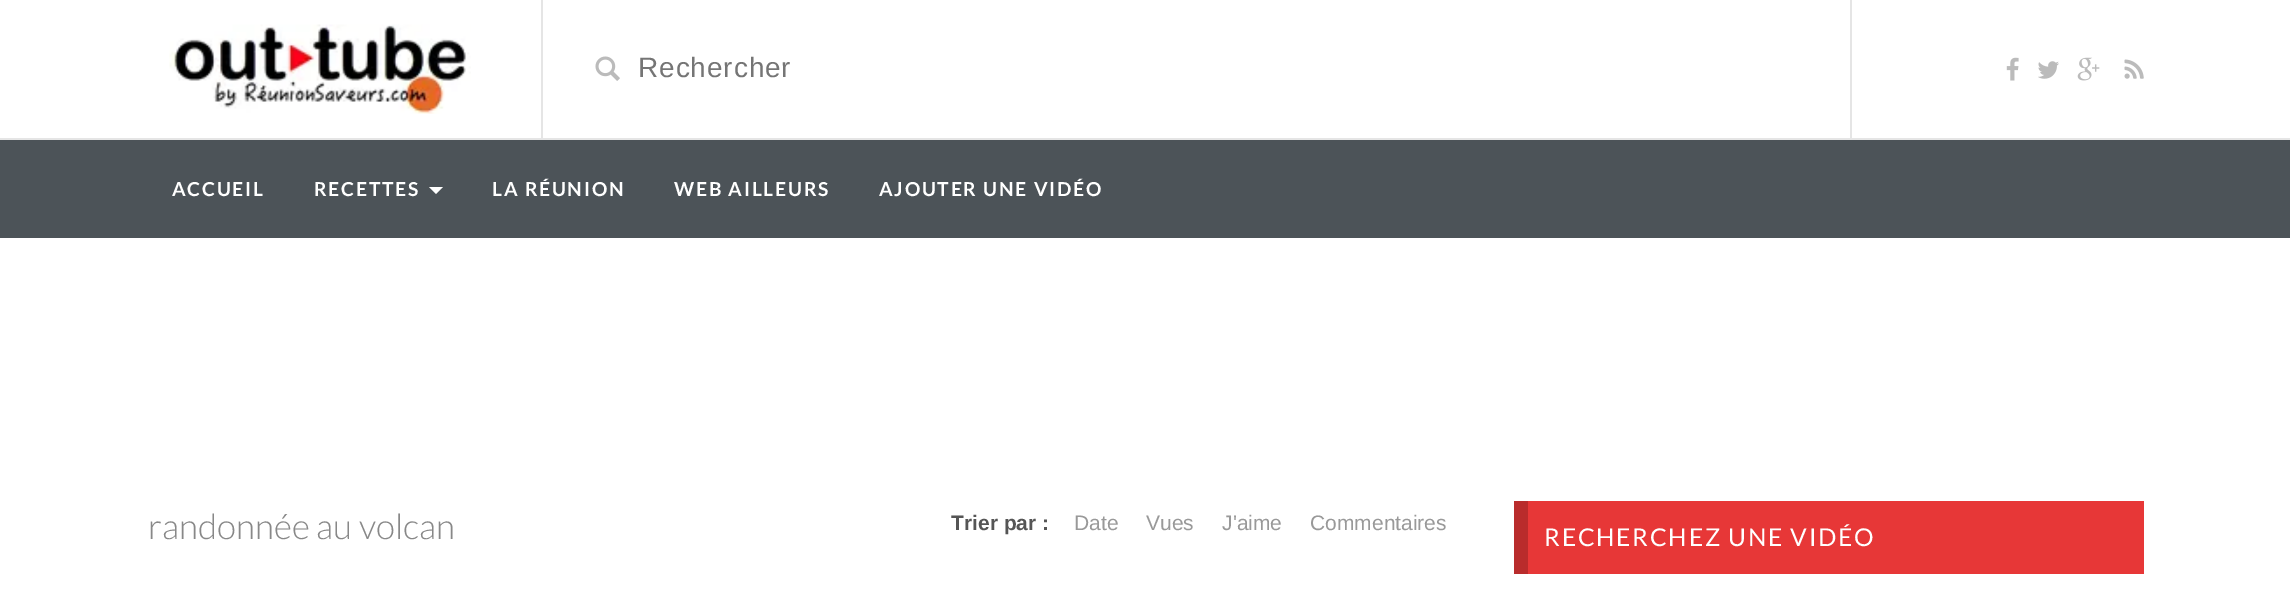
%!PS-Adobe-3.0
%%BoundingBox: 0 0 2290 590
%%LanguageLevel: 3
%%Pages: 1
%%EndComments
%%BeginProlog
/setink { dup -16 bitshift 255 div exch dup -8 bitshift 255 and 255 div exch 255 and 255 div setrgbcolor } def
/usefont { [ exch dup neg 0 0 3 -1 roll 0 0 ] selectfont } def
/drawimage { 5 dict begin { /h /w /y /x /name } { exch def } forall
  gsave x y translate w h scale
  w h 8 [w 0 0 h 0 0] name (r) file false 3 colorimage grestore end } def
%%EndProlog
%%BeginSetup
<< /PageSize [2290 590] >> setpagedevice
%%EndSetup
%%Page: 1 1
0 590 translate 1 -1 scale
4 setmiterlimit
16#FFFFFF setink
0 0 2290 590 rectfill
16#E5E5E5 setink
0 138 2290 2 rectfill
541 0 2 138 rectfill
(img1.raw) 169 24 302 90 drawimage
(img2.raw) 595 56 25 25 drawimage
/LiberationSans-Regular 28 usefont
16#757575 setink
638 77 moveto 0.9 0 (Rechercher) ashow
16#E5E5E5 setink
1850 0 2 138 rectfill
(img3.raw) 2006 57 13 24 drawimage
(img4.raw) 2038 61 21 18 drawimage
(img5.raw) 2077 57 23 24 drawimage
(img6.raw) 2124 59 20 20 drawimage
16#4C5358 setink
0 140 2290 98 rectfill
/Lato-Bold 19.25 usefont
16#FFFFFF setink
172 196 moveto 1.75 0 (ACCUEIL) ashow
314 196 moveto 1.75 0 (RECETTES) ashow
429 187 moveto 443 187 lineto 436 194 lineto closepath fill
492 196 moveto 1.75 0 (LA RÉUNION) ashow
674 196 moveto 1.75 0 (WEB AILLEURS) ashow
879 196 moveto 1.75 0 (AJOUTER UNE VIDÉO) ashow
/Lato-Light 35 usefont
16#888888 setink
148 539 moveto (randonnée au volcan) show
/LiberationSans-Bold 21 usefont
16#555555 setink
951 530 moveto (Trier par :) show
/LiberationSans-Regular 21 usefont
16#999999 setink
[
    [(Date) 1074 530]
    [(Vues) 1146 530]
    [(J'aime) 1222 530]
    [(Commentaires) 1310 530]
] { aload pop moveto show } forall
16#E73737 setink
1528 501 616 73 rectfill
16#B92C2C setink
1514 501 14 73 rectfill
/Lato-Regular 24.5 usefont
16#FFFFFF setink
1544 546 moveto 1.75 0 (RECHERCHEZ UNE VIDÉO) ashow
showpage
%%EOF
